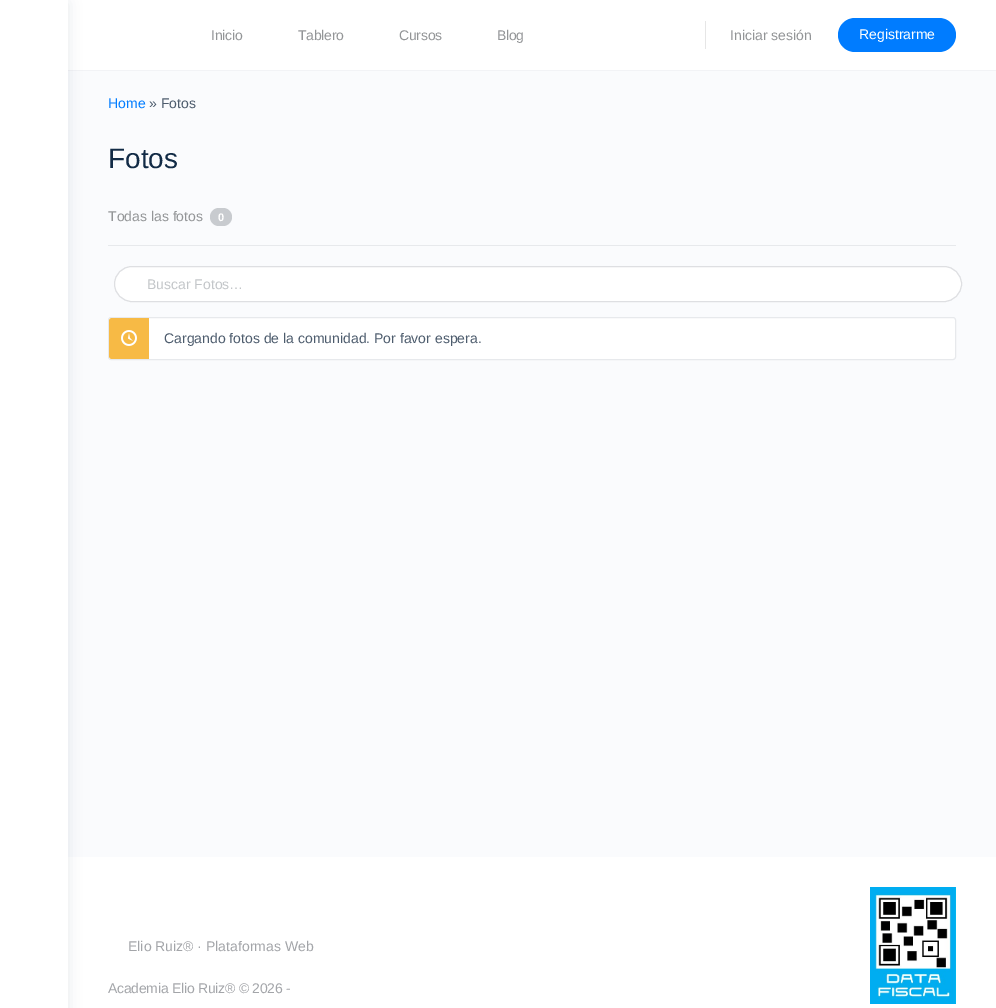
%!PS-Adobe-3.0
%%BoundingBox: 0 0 996 1008
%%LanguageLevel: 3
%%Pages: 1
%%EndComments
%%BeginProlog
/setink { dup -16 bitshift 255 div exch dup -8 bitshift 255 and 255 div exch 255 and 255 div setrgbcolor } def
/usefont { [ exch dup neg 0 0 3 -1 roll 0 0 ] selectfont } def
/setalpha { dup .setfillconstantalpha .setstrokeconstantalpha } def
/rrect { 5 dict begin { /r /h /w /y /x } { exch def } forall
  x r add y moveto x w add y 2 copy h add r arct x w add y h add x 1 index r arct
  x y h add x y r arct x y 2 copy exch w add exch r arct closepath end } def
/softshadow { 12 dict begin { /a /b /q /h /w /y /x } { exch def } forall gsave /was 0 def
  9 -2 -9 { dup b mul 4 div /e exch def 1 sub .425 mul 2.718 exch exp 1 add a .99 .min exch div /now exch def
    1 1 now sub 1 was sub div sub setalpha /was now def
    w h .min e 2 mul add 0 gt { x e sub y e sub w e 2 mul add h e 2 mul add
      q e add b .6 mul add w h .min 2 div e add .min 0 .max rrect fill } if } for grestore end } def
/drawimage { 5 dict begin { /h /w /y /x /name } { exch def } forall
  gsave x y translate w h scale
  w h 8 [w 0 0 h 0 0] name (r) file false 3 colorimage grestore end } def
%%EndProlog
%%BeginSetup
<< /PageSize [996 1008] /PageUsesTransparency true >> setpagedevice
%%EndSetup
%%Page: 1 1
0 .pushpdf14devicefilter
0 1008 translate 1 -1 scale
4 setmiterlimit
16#FAFBFD setink
0 0 996 1008 rectfill
[
    [68 70 928 1 16#F2F3F6]
    [68 0 928 70 16#FFFFFF]
    [68 857 928 151 16#FFFFFF]
] { aload pop setink rectfill } forall
16#122B46 setink
0 3 68 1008 0 6.5 0.1 softshadow
16#FFFFFF setink
0 0 68 1008 rectfill
/LiberationSans-Regular 14 usefont
16#939597 setink
211 40 moveto -0.25 0 (Inicio) ashow
298 40 moveto -0.25 0 (Tablero) ashow
399 40 moveto -0.25 0 (Cursos) ashow
497 40 moveto -0.25 0 (Blog) ashow
16#E6E6E6 setink
705 21 1 28 rectfill
16#939597 setink
730 40 moveto (Iniciar sesión) show
16#007CFF setink
838 18 118 34 17 rrect fill
16#FFFFFF setink
859 39 moveto (Registrarme) show
16#007CFF setink
108 108 moveto (Home) show
16#4D5C6D setink
149 108 moveto (» Fotos) show
/LiberationSans-Regular 28 usefont
16#122B46 setink
108 168 moveto (Fotos) show
16#E7E9EC setink
108 245 848 1 rectfill
/LiberationSans-Regular 14 usefont
16#939597 setink
108 221 moveto (Todas las fotos) show
16#C8CBCF setink
210 208 22 18 9 rrect fill
/LiberationSans-Bold 11 usefont
16#FFFFFF setink
218 221 moveto (0) show
114.5 266.5 847 35 17.5 rrect gsave fill grestore
16#DEDFE2 setink
stroke
/LiberationSans-Regular 14 usefont
16#C3C6C9 setink
147 289 moveto (Buscar Fotos…) show
16#FFFFFF setink
108.5 317.5 847 42 2.5 rrect gsave fill grestore
16#E7E9EC setink
stroke
16#F7BA45 setink
112 318 moveto 149 318 lineto 149 359 lineto 112 359 lineto 110.5 359 109 357.5 109 356 curveto 109 321 lineto 109 319.5 110.5 318 112 318 curveto closepath fill
(img1.raw) 121 330 16 16 drawimage
16#4D5C6D setink
164 343 moveto (Cargando fotos de la comunidad. Por favor espera.) show
16#A3A5A9 setink
128 951 moveto (Elio Ruiz® · Plataformas Web) show
108 993 moveto -0.25 0 (Academia Elio Ruiz® © 2026 -) ashow
(img2.raw) 870 887 86 117 drawimage
.poppdf14devicefilter showpage
%%EOF
